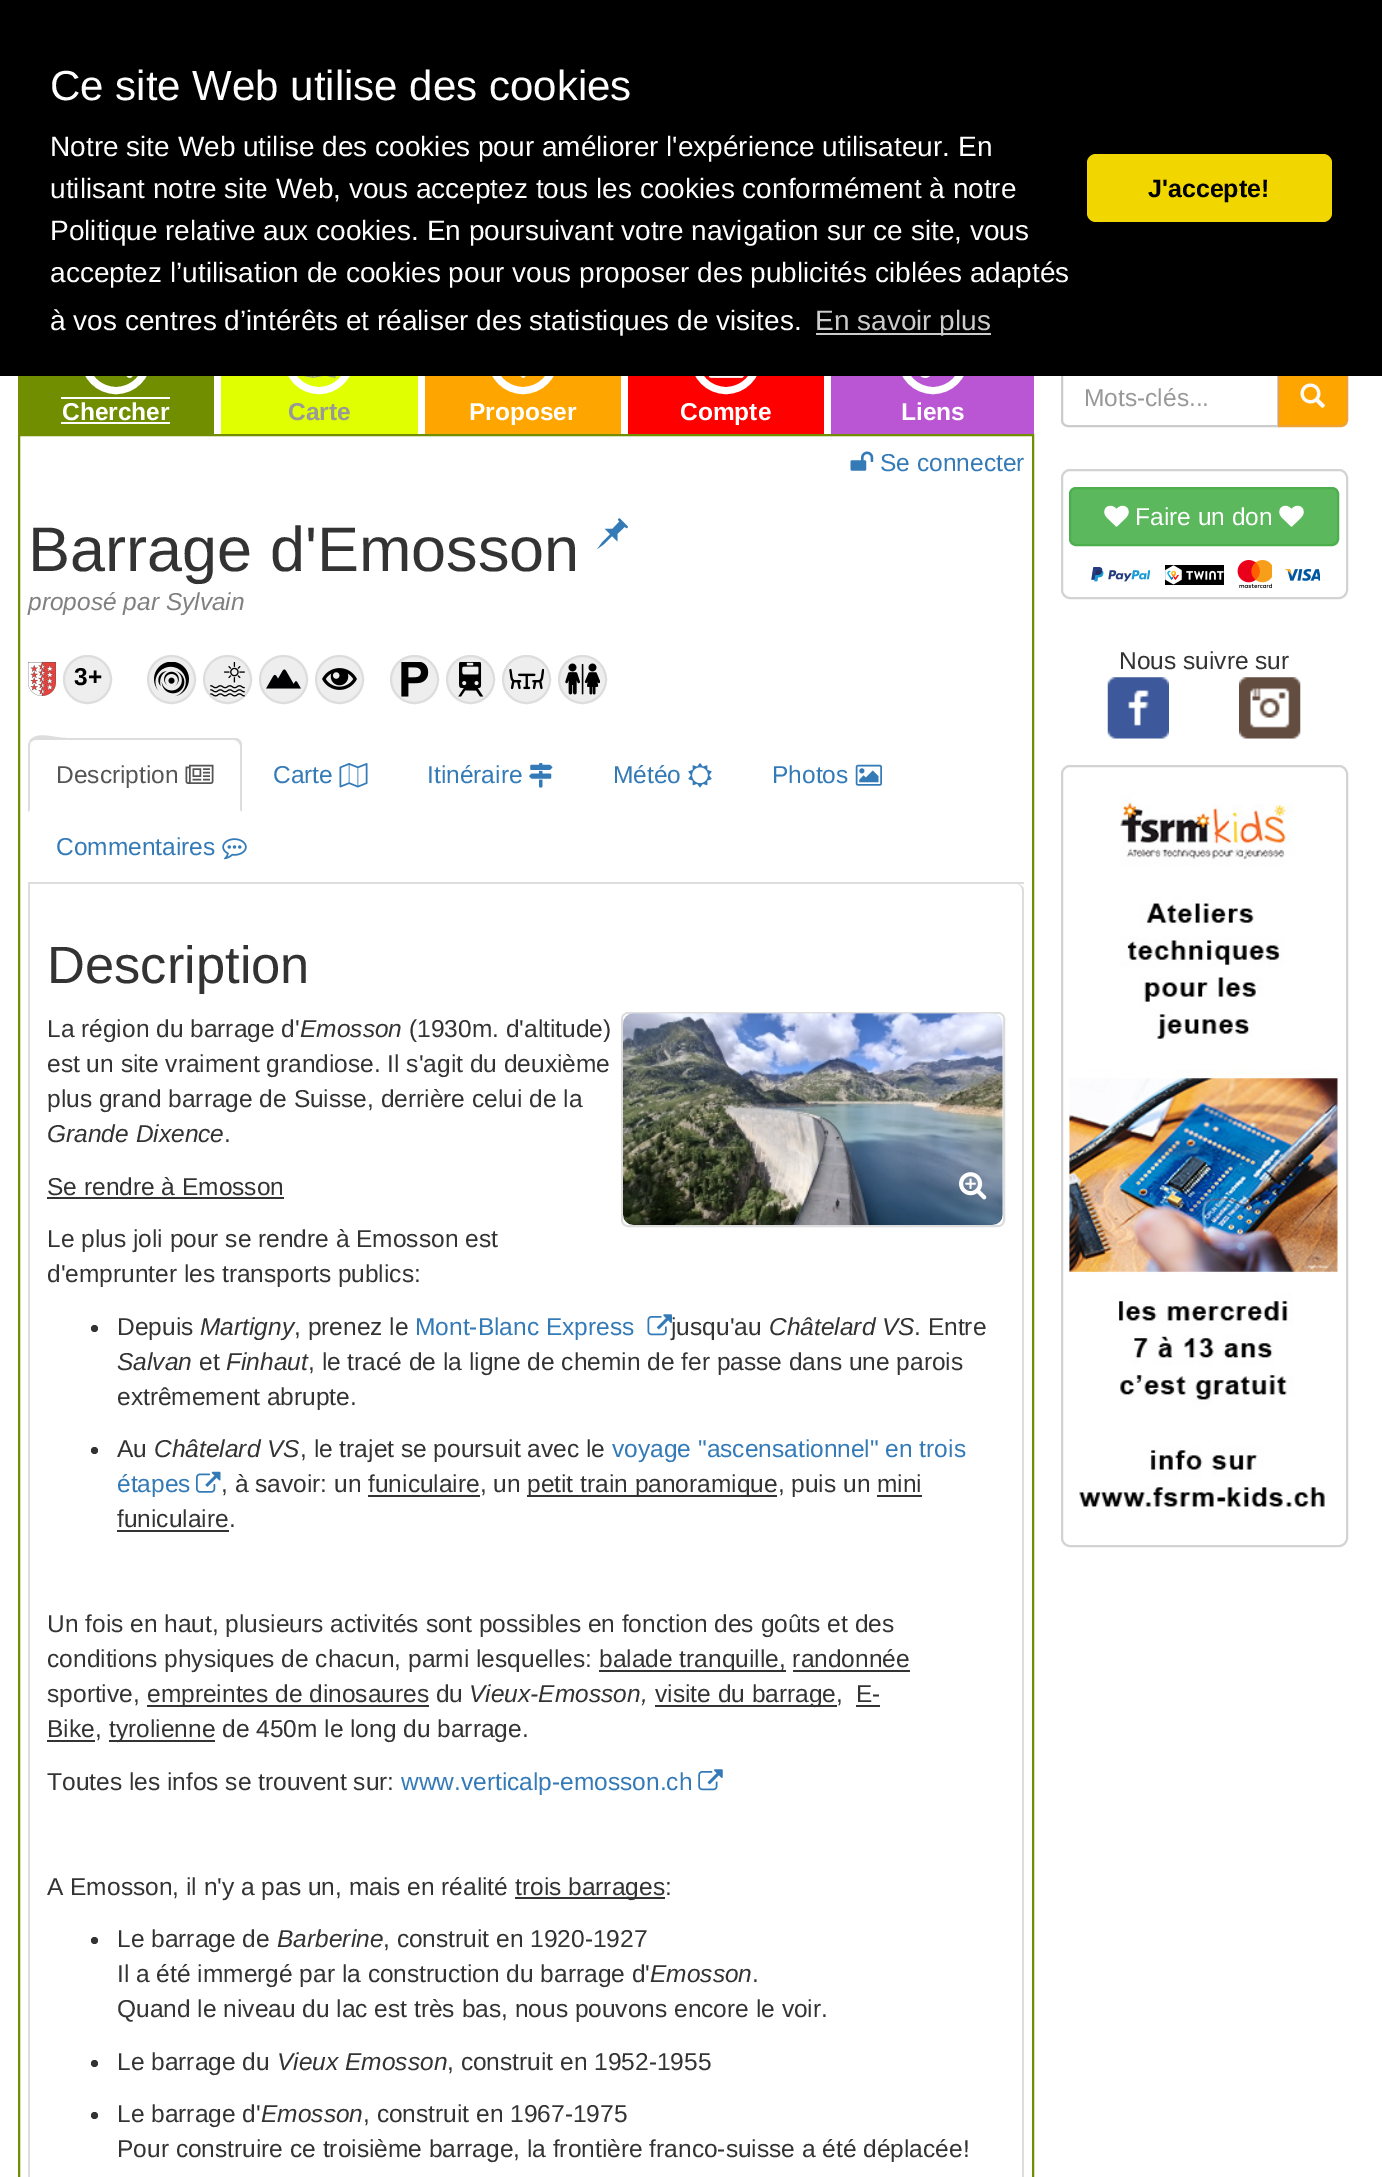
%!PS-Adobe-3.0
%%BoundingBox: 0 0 1382 2177
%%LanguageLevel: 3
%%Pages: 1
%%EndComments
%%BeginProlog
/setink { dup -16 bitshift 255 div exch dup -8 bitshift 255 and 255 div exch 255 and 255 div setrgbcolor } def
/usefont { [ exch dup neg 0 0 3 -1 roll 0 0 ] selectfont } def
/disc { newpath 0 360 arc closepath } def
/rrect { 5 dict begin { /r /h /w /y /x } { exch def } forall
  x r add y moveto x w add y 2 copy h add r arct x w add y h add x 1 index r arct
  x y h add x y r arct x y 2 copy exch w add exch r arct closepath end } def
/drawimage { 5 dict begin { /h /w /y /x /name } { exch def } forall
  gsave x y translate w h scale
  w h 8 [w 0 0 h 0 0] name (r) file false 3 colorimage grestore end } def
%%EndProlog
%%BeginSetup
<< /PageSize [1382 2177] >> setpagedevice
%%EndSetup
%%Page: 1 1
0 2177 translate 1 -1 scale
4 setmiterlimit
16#FFFFFF setink
0 0 1382 2177 rectfill
16#CCCCCC setink
2 setlinewidth
1068 369 moveto 1278 369 lineto 1278 426 lineto 1068 426 lineto 1064.5 426 1062 423.5 1062 420 curveto 1062 375 lineto 1062 371.5 1064.5 369 1068 369 curveto closepath stroke
16#FFA500 setink
1279 369 moveto 1341 369 lineto 1344.5 369 1347 371.5 1347 375 curveto 1347 420 lineto 1347 423.5 1344.5 426 1341 426 curveto 1279 426 lineto closepath gsave fill grestore
16#EEA236 setink
stroke
16#708E00 setink
18 376 196 58 rectfill
116 359 31.5 disc gsave fill grestore
16#FFFFFF setink
7 setlinewidth
stroke
16#E0FF00 setink
221 376 197 58 rectfill
319 359 31.5 disc gsave fill grestore
16#FFFFFF setink
stroke
16#FFA500 setink
425 376 196 58 rectfill
523 359 31.5 disc gsave fill grestore
16#FFFFFF setink
stroke
16#FF0000 setink
628 376 196 58 rectfill
726 359 31.5 disc gsave fill grestore
16#FFFFFF setink
stroke
16#BA55D3 setink
831 376 203 58 rectfill
933 359 31.5 disc gsave fill grestore
16#FFFFFF setink
stroke
16#000000 setink
0 0 1382 376 rectfill
/LiberationSans-Regular 42 usefont
16#FFFFFF setink
50 100 moveto (Ce site Web utilise des cookies) show
/LiberationSans-Regular 28 usefont
[
    [(Notre site Web utilise des cookies pour améliorer l'expérience utilisateur. En) 50 156]
    [(utilisant notre site Web, vous acceptez tous les cookies conformément à notre) 50 198]
    [(Politique relative aux cookies. En poursuivant votre navigation sur ce site, vous) 50 240]
    [(acceptez l’utilisation de cookies pour vous proposer des publicités ciblées adaptés) 50 282]
    [(à vos centres d’intérêts et réaliser des statistiques de visites.) 50 330]
] { aload pop moveto show } forall
16#CCCCCC setink
816 333 175 2 rectfill
815 330 moveto (En savoir plus) show
16#F1D600 setink
1087 154 245 68 9 rrect fill
/LiberationSans-Bold 25 usefont
16#000000 setink
1148 197 moveto (J'accepte!) show
/LiberationSans-Regular 24.5 usefont
16#999999 setink
1084 406 moveto (Mots-clés...) show
(img1.raw) 1300 383 25 25 drawimage
(img2.raw) 126 376 7 2 drawimage
/LiberationSans-Bold 24.5 usefont
16#FFFFFF setink
62 420 moveto (Chercher) show
61 422 109 2 rectfill
61 397 109 2 rectfill
(img3.raw) 303 376 33 2 drawimage
16#999999 setink
288 420 moveto (Carte) show
(img4.raw) 520 376 6 2 drawimage
16#FFFFFF setink
469 420 moveto (Proposer) show
(img5.raw) 708 376 36 2 drawimage
680 420 moveto (Compte) show
(img6.raw) 920 376 10 2 drawimage
901 420 moveto (Liens) show
16#708E00 setink
2 setlinewidth
19 435 1014 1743 rectstroke
(img7.raw) 850 451 24 20 drawimage
/LiberationSans-Regular 24.5 usefont
16#337AB7 setink
880 471 moveto (Se connecter) show
/LiberationSans-Regular 63 usefont
16#333333 setink
28 571 moveto (Barrage d'Emosson) show
(img8.raw) 597 518 31 32 drawimage
/LiberationSans-Italic 24.5 usefont
16#808080 setink
28 610 moveto (proposé par Sylvain) show
(img9.raw) 28 662 28 34 drawimage
16#EEEEEE setink
87.5 679.5 23.5 disc gsave fill grestore
16#DDDDDD setink
stroke
/LiberationSans-Bold 24.5 usefont
16#000000 setink
74 685 moveto (3+) show
16#EEEEEE setink
171.5 679.5 23.5 disc gsave fill grestore
16#DDDDDD setink
stroke
(img10.raw) 154 662 35 35 drawimage
16#EEEEEE setink
227.5 679.5 23.5 disc gsave fill grestore
16#DDDDDD setink
stroke
(img11.raw) 210 662 35 35 drawimage
16#EEEEEE setink
283.5 679.5 23.5 disc gsave fill grestore
16#DDDDDD setink
stroke
(img12.raw) 266 669 35 20 drawimage
16#EEEEEE setink
339.5 679.5 23.5 disc gsave fill grestore
16#DDDDDD setink
stroke
(img13.raw) 322 668 35 22 drawimage
16#EEEEEE setink
414.5 679.5 23.5 disc gsave fill grestore
16#DDDDDD setink
stroke
(img14.raw) 401 662 28 35 drawimage
16#EEEEEE setink
470.5 679.5 23.5 disc gsave fill grestore
16#DDDDDD setink
stroke
(img15.raw) 458 662 26 35 drawimage
16#EEEEEE setink
526.5 679.5 23.5 disc gsave fill grestore
16#DDDDDD setink
stroke
(img16.raw) 509 668 35 22 drawimage
16#EEEEEE setink
582.5 679.5 23.5 disc gsave fill grestore
16#DDDDDD setink
stroke
(img17.raw) 565 663 35 32 drawimage
28 882 996 2 rectfill
35 740 moveto 34 740 32 741 31 742 curveto 30 740 lineto 38 731 54 738 67 738 curveto 237 738 lineto 240 740 lineto 238 742 lineto 237 741 236 740 234 740 curveto closepath fill
242 743 moveto 242 812 lineto 240 810 lineto 240 746 lineto 240 744 239 743 238 742 curveto 240 740 lineto closepath fill
28 812 moveto 30 810 lineto 30 746 lineto 30 744 30 743 31 742 curveto 30 740 lineto 29 742 28 744 28 746 curveto closepath fill
/LiberationSans-Regular 24.5 usefont
16#555555 setink
56 783 moveto (Description) show
(img18.raw) 185 764 29 20 drawimage
16#337AB7 setink
273 783 moveto (Carte) show
(img19.raw) 339 763 29 25 drawimage
427 783 moveto (Itinéraire) show
(img20.raw) 529 763 24 25 drawimage
613 783 moveto (Météo) show
(img21.raw) 688 763 24 25 drawimage
772 783 moveto (Photos) show
(img22.raw) 855 764 27 22 drawimage
56 855 moveto (Commentaires) show
(img23.raw) 222 838 25 22 drawimage
16#DDDDDD setink
28 884 moveto 1017 884 lineto 1021 884 1024 887 1024 891 curveto 1024 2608 lineto 35 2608 lineto 31 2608 28 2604 28 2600 curveto closepath 30 884 moveto 1017 884 lineto 1020 884 1022 887 1022 891 curveto 1022 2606 lineto 35 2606 lineto 32 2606 30 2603 30 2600 curveto closepath eofill
/LiberationSans-Regular 52.5 usefont
16#333333 setink
47 983 moveto (Description) show
/LiberationSans-Regular 24.5 usefont
47 1037 moveto (La région du barrage d') show
/LiberationSans-Italic 24.5 usefont
300 1037 moveto (Emosson) show
/LiberationSans-Regular 24.5 usefont
[
    [(\(1930m. d'altitude\)) 409 1037]
    [(est un site vraiment grandiose. Il s'agit du deuxième) 47 1072]
    [(plus grand barrage de Suisse, derrière celui de la) 47 1107]
] { aload pop moveto show } forall
/LiberationSans-Italic 24.5 usefont
47 1142 moveto (Grande Dixence) show
/LiberationSans-Regular 24.5 usefont
224 1142 moveto (.) show
16#DDDDDD setink
622 1013 382 213 6 rrect stroke
(img24.raw) 623 1013 380 212 drawimage
(img25.raw) 959 1172 28 28 drawimage
16#333333 setink
47 1195 moveto (Se rendre à Emosson) show
47 1197 237 2 rectfill
47 1247 moveto (Le plus joli pour se rendre à Emosson est) show
47 1282 moveto (d'emprunter les transports publics:) show
94.5 1328.5 3.5 disc fill
117 1335 moveto (Depuis) show
/LiberationSans-Italic 24.5 usefont
200 1335 moveto (Martigny) show
/LiberationSans-Regular 24.5 usefont
294 1335 moveto (, prenez le) show
16#337AB7 setink
415 1335 moveto (Mont-Blanc Express) show
(img26.raw) 647 1314 25 22 drawimage
16#333333 setink
671 1335 moveto (jusqu'au) show
/LiberationSans-Italic 24.5 usefont
769 1335 moveto (Châtelard VS) show
/LiberationSans-Regular 24.5 usefont
914 1335 moveto (. Entre) show
/LiberationSans-Italic 24.5 usefont
117 1370 moveto (Salvan) show
/LiberationSans-Regular 24.5 usefont
199 1370 moveto (et) show
/LiberationSans-Italic 24.5 usefont
226 1370 moveto (Finhaut) show
/LiberationSans-Regular 24.5 usefont
308 1370 moveto (, le tracé de la ligne de chemin de fer passe dans une parois) show
117 1405 moveto (extrêmement abrupte.) show
16#337AB7 setink
612 1457 moveto (voyage "ascensationnel" en trois) show
117 1492 moveto (étapes) show
(img27.raw) 196 1471 25 22 drawimage
16#333333 setink
94.5 1450.5 3.5 disc fill
117 1457 moveto (Au) show
/LiberationSans-Italic 24.5 usefont
154 1457 moveto (Châtelard VS) show
/LiberationSans-Regular 24.5 usefont
300 1457 moveto (, le trajet se poursuit avec le) show
221 1492 moveto (, à savoir: un funiculaire, un) show
527 1495 250 2 rectfill
527 1492 moveto (petit train panoramique, puis un mini) show
368 1495 112 2 rectfill
117 1527 moveto (funiculaire.) show
877 1495 45 2 rectfill
117 1530 112 2 rectfill
47 1632 moveto (Un fois en haut, plusieurs activités sont possibles en fonction des goûts et des) show
47 1667 moveto (conditions physiques de chacun, parmi lesquelles:) show
599 1670 187 2 rectfill
599 1667 moveto (balade tranquille, randonnée) show
793 1670 117 2 rectfill
47 1702 moveto (sportive,) show
147 1705 282 2 rectfill
147 1702 moveto (empreintes de dinosaures du) show
/LiberationSans-Italic 24.5 usefont
469 1702 moveto (Vieux-Emosson,) show
655 1705 182 2 rectfill
/LiberationSans-Regular 24.5 usefont
655 1702 moveto (visite du barrage,) show
856 1702 moveto (E-) show
856 1705 24 2 rectfill
47 1740 48 2 rectfill
47 1737 moveto (Bike,) show
109 1740 106 2 rectfill
109 1737 moveto (tyrolienne de 450m le long du barrage.) show
47 1790 moveto (Toutes les infos se trouvent sur:) show
16#337AB7 setink
401 1790 moveto (www.verticalp-emosson.ch) show
(img28.raw) 698 1769 25 22 drawimage
16#333333 setink
47 1895 moveto (A Emosson, il n'y a pas un, mais en réalité) show
515 1897 150 2 rectfill
515 1895 moveto (trois barrages:) show
94.5 1940.5 3.5 disc fill
117 1947 moveto (Le barrage de) show
/LiberationSans-Italic 24.5 usefont
277 1947 moveto (Barberine) show
/LiberationSans-Regular 24.5 usefont
383 1947 moveto (, construit en 1920-1927) show
117 1982 moveto (Il a été immergé par la construction du barrage d') show
/LiberationSans-Italic 24.5 usefont
650 1982 moveto (Emosson) show
/LiberationSans-Regular 24.5 usefont
752 1982 moveto (.) show
117 2017 moveto (Quand le niveau du lac est très bas, nous pouvons encore le voir.) show
94.5 2063.5 3.5 disc fill
117 2070 moveto (Le barrage du) show
/LiberationSans-Italic 24.5 usefont
277 2070 moveto (Vieux Emosson) show
/LiberationSans-Regular 24.5 usefont
447 2070 moveto (, construit en 1952-1955) show
94.5 2115.5 3.5 disc fill
117 2122 moveto (Le barrage d') show
/LiberationSans-Italic 24.5 usefont
261 2122 moveto (Emosson) show
/LiberationSans-Regular 24.5 usefont
363 2122 moveto (, construit en 1967-1975) show
117 2157 moveto (Pour construire ce troisième barrage, la frontière franco-suisse a été déplacée!) show
16#D3D3D3 setink
1062 470 285 128 8 rrect stroke
16#5CB85C setink
1070 488 268 57 6 rrect gsave fill grestore
16#4CAE4C setink
stroke
(img29.raw) 1104 505 25 22 drawimage
16#FFFFFF setink
1135 525 moveto (Faire un don) show
(img29.raw) 1279 505 25 22 drawimage
(img30.raw) 1091 567 59 15 drawimage
(img31.raw) 1165 565 59 20 drawimage
(img32.raw) 1237 560 35 28 drawimage
(img33.raw) 1285 569 35 12 drawimage
16#333333 setink
1119 669 moveto (Nous suivre sur) show
(img34.raw) 1107 677 62 62 drawimage
(img35.raw) 1239 677 62 62 drawimage
16#D3D3D3 setink
1062 766 285 780 8 rrect stroke
(img36.raw) 1069 794 270 713 drawimage
showpage
%%EOF
